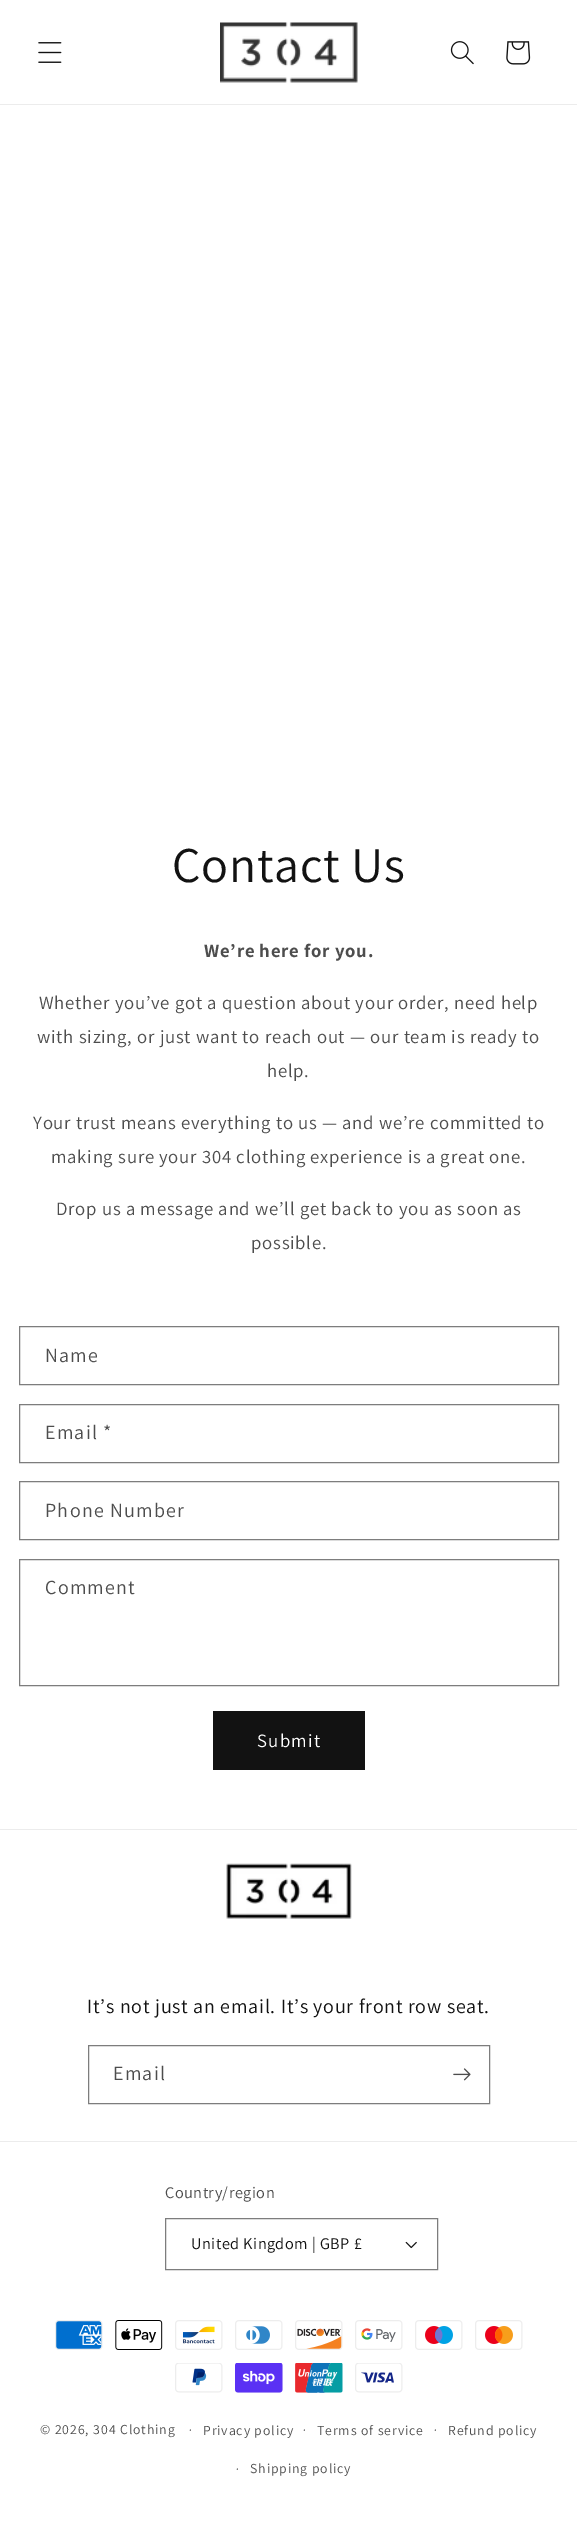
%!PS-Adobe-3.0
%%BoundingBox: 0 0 577 2521
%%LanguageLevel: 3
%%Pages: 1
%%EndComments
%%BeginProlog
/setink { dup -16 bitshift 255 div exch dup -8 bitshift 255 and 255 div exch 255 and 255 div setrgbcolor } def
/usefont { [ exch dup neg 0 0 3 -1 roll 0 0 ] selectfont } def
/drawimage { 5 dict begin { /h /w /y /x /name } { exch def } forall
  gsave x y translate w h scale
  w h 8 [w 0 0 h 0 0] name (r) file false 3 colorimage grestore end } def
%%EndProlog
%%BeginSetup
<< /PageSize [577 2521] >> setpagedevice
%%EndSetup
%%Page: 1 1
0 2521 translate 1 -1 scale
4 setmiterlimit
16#FFFFFF setink
0 0 577 2521 rectfill
16#ECECEC setink
0 104 577 1 rectfill
(img1.raw) 38 42 24 21 drawimage
(img2.raw) 220 22 138 61 drawimage
(img3.raw) 450 41 24 24 drawimage
(img4.raw) 506 41 25 24 drawimage
/Assistant-Regular 50 usefont
16#121212 setink
172 882 moveto 0.75 0 (Contact Us) ashow
/Assistant-Bold 18.75 usefont
16#4D4D4D setink
204 957 moveto 0.75 0 (We’re here for you.) ashow
/Assistant-Regular 18.75 usefont
39 1009 moveto 0.75 0 (Whether you’ve got a question about your order, need help) ashow
37 1043 moveto 0.75 0 (with sizing, or just want to reach out — our team is ready to) ashow
267 1077 moveto 0.75 0 (help.) ashow
33 1129 moveto 0.75 0 (Your trust means everything to us — and we’re committed to) ashow
51 1163 moveto 0.75 0 (making sure your 304 clothing experience is a great one.) ashow
56 1215 moveto 0.75 0 (Drop us a message and we’ll get back to you as soon as) ashow
251 1249 moveto 0.75 0 (possible.) ashow
16#7D7D7D setink
19.5 1326.5 539 58 rectstroke
/Assistant-Regular 20 usefont
16#4D4D4D setink
45 1362 moveto 1.25 0 (Name) ashow
16#7D7D7D setink
19.5 1404.5 539 58 rectstroke
16#4D4D4D setink
45 1439 moveto 1.25 0 (Email *) ashow
16#7D7D7D setink
19.5 1481.5 539 58 rectstroke
16#4D4D4D setink
45 1517 moveto 1.25 0 (Phone Number) ashow
16#7D7D7D setink
19.5 1559.5 539 126 rectstroke
16#4D4D4D setink
45 1594 moveto 1.25 0 (Comment) ashow
16#121212 setink
213 1711 152 59 rectfill
/Assistant-Regular 18.75 usefont
16#FFFFFF setink
257 1747 moveto 1.25 0 (Submit) ashow
16#ECECEC setink
0 1829 577 1 rectfill
(img5.raw) 226 1863 126 56 drawimage
/Assistant-Regular 20 usefont
16#121212 setink
87 2013 moveto 0.75 0 (It’s not just an email. It’s your front row seat.) ashow
16#7D7D7D setink
88.5 2045.5 401 58 rectstroke
16#4D4D4D setink
113 2080 moveto 1.25 0 (Email) ashow
(img6.raw) 453 2068 18 13 drawimage
16#ECECEC setink
0 2141 577 1 rectfill
/Assistant-Regular 16.25 usefont
16#4D4D4D setink
165 2198 moveto 0.5 0 (Country/region) ashow
(img7.raw) 405 2241 12 8 drawimage
16#7D7D7D setink
165.5 2218.5 272 51 rectstroke
16#121212 setink
191 2249 moveto 0.5 0 (United Kingdom | GBP £) ashow
(img8.raw) 55 2320 48 30 drawimage
(img9.raw) 115 2320 48 30 drawimage
(img10.raw) 175 2320 48 30 drawimage
(img11.raw) 235 2320 48 30 drawimage
(img12.raw) 295 2320 48 30 drawimage
(img13.raw) 355 2320 48 30 drawimage
(img14.raw) 415 2320 48 30 drawimage
(img15.raw) 475 2320 48 30 drawimage
(img16.raw) 175 2363 48 30 drawimage
(img17.raw) 235 2363 48 30 drawimage
(img18.raw) 295 2363 48 30 drawimage
(img19.raw) 355 2363 48 30 drawimage
/Assistant-Regular 13.75 usefont
16#4D4D4D setink
40 2434 moveto 0.9 0 (© 2026, 304 Clothing) ashow
/Assistant-Regular 12 usefont
189 2434 moveto 0.9 0 (·) ashow
/Assistant-Regular 13.75 usefont
203 2435 moveto 0.9 0 (Privacy policy) ashow
/Assistant-Regular 12 usefont
303 2434 moveto 0.9 0 (·) ashow
/Assistant-Regular 13.75 usefont
317 2435 moveto 0.9 0 (Terms of service) ashow
/Assistant-Regular 12 usefont
434 2434 moveto 0.9 0 (·) ashow
/Assistant-Regular 13.75 usefont
448 2435 moveto 0.9 0 (Refund policy) ashow
/Assistant-Regular 12 usefont
236 2473 moveto 0.9 0 (·) ashow
/Assistant-Regular 13.75 usefont
250 2473 moveto 0.9 0 (Shipping policy) ashow
showpage
%%EOF
